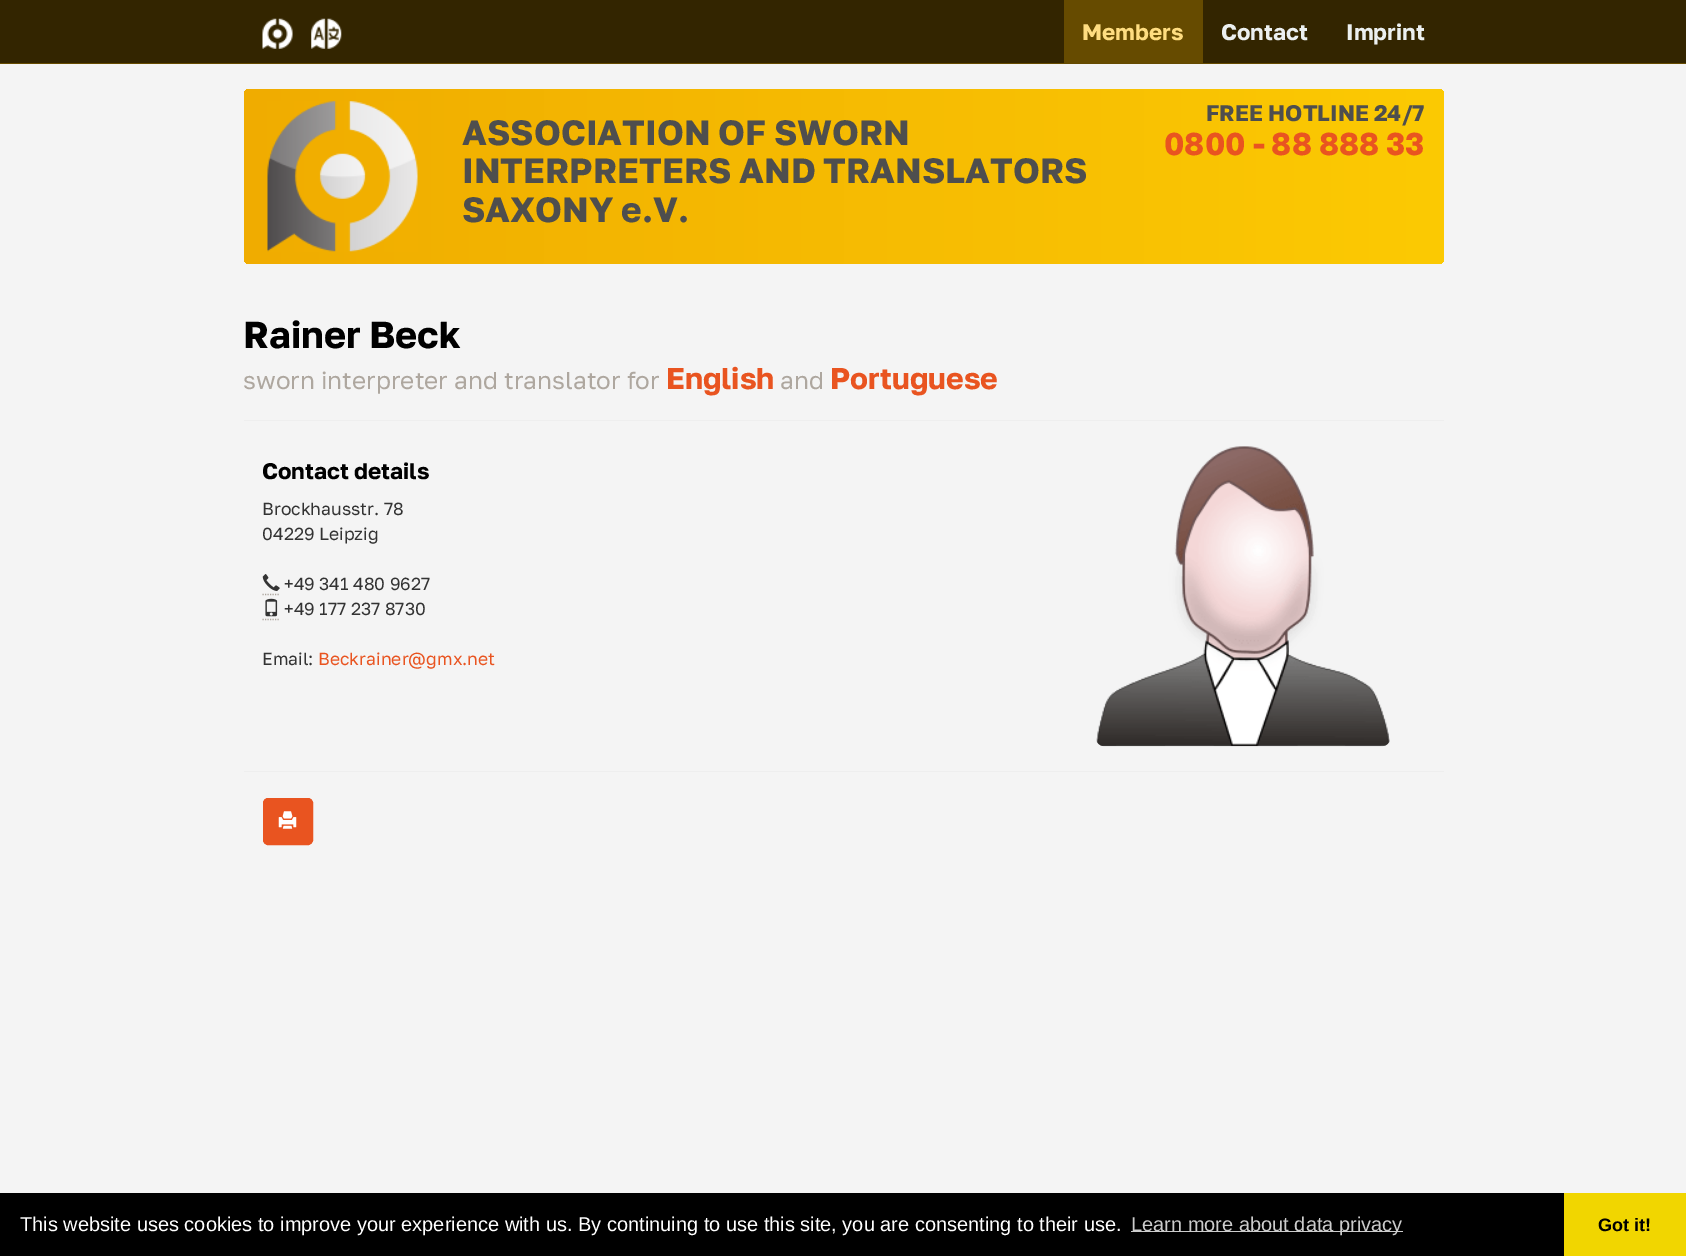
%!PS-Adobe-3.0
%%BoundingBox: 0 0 1686 1256
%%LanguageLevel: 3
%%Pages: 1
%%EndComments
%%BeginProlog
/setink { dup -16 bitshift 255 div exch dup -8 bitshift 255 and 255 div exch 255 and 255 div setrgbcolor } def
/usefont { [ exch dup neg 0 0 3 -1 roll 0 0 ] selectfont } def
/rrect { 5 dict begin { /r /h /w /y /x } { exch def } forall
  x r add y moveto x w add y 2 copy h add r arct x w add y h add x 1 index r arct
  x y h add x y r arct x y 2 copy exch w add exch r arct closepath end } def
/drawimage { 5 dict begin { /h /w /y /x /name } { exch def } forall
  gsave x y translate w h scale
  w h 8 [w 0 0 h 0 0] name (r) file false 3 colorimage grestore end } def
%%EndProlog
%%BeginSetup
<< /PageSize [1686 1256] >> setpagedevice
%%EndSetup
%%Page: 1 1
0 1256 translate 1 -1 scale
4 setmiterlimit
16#F4F4F4 setink
0 0 1686 1256 rectfill
16#332500 setink
0 0 1686 63 rectfill
16#664B00 setink
0 63 1686 1 rectfill
(img1.raw) 262 18 31 31 drawimage
(img2.raw) 311 18 31 31 drawimage
1064 0 139 63 rectfill
/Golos-Bold 22.5 usefont
16#FFDD80 setink
1082 40 moveto (Members) show
16#ECF0F0 setink
1221 40 moveto (Contact) show
1346 40 moveto (Imprint) show
gsave 244 89 1200 175 5 rrect clip newpath
<< /ShadingType 2 /ColorSpace /DeviceRGB /Coords [244 176 1444 176] /Extend [true true] /Function << /FunctionType 2 /Domain [0 1] /C0 [0.941 0.675 0] /C1 [0.988 0.792 0.012] /N 1 >> >> shfill grestore
(img3.raw) 267 101 151 151 drawimage
/Golos-Bold 35 usefont
16#4E4E4E setink
[
    [(ASSOCIATION OF SWORN) 462 145]
    [(INTERPRETERS AND TRANSLATORS) 462 183]
    [(SAXONY e.V.) 462 222]
] { aload pop moveto show } forall
/Golos-Bold 22.5 usefont
1206 121 moveto (FREE HOTLINE 24/7) show
/Golos-Bold 31.5 usefont
16#E95420 setink
1164 155 moveto (0800 - 88 888 33) show
16#EEEEEE setink
244 420 1200 1 rectfill
/Golos-Bold 37.5 usefont
16#000000 setink
243 348 moveto (Rainer Beck) show
/Golos-Regular 24.4 usefont
16#AEA79F setink
243 389 moveto (sworn interpreter and translator for) show
/Golos-Bold 30 usefont
16#E95420 setink
666 389 moveto (English) show
/Golos-Regular 24.4 usefont
16#AEA79F setink
780 389 moveto (and) show
/Golos-Bold 30 usefont
16#E95420 setink
830 389 moveto (Portuguese) show
/Golos-Bold 22.5 usefont
16#000000 setink
262 479 moveto (Contact details) show
/Golos-Regular 17.5 usefont
16#333333 setink
262 515 moveto (Brockhausstr. 78) show
262 540 moveto (04229 Leipzig) show
16#AEA79F setink
1.2 setlinewidth
[1.25 1.25] 0 setdash
262.5 594.5 moveto 280 594.5 lineto stroke
(img4.raw) 262 574 18 17 drawimage
16#333333 setink
284 590 moveto (+49 341 480 9627) show
16#AEA79F setink
262.5 619.5 moveto 280 619.5 lineto stroke
(img5.raw) 265 598 13 19 drawimage
16#333333 setink
284 615 moveto (+49 177 237 8730) show
262 665 moveto (Email:) show
16#E95420 setink
318 665 moveto (Beckrainer@gmx.net) show
(img6.raw) 1096 446 294 301 drawimage
16#EEEEEE setink
244 771 1200 1 rectfill
16#E95420 setink
263.5 798.5 49 46 4.5 rrect gsave fill grestore
1 setlinewidth
[] 0 setdash
stroke
(img7.raw) 278 811 19 18 drawimage
16#000000 setink
0 1193 1564 63 rectfill
/LiberationSans-Regular 20 usefont
16#FFFFFF setink
20 1231 moveto (This website uses cookies to improve your experience with us. By continuing to use this site, you are consenting to their use.) show
16#CCCCCC setink
1131 1231 272 1 rectfill
1131 1231 moveto (Learn more about data privacy) show
16#F1D600 setink
1564 1193 122 63 rectfill
/LiberationSans-Bold 18 usefont
16#000000 setink
1598 1231 moveto (Got it!) show
showpage
%%EOF
